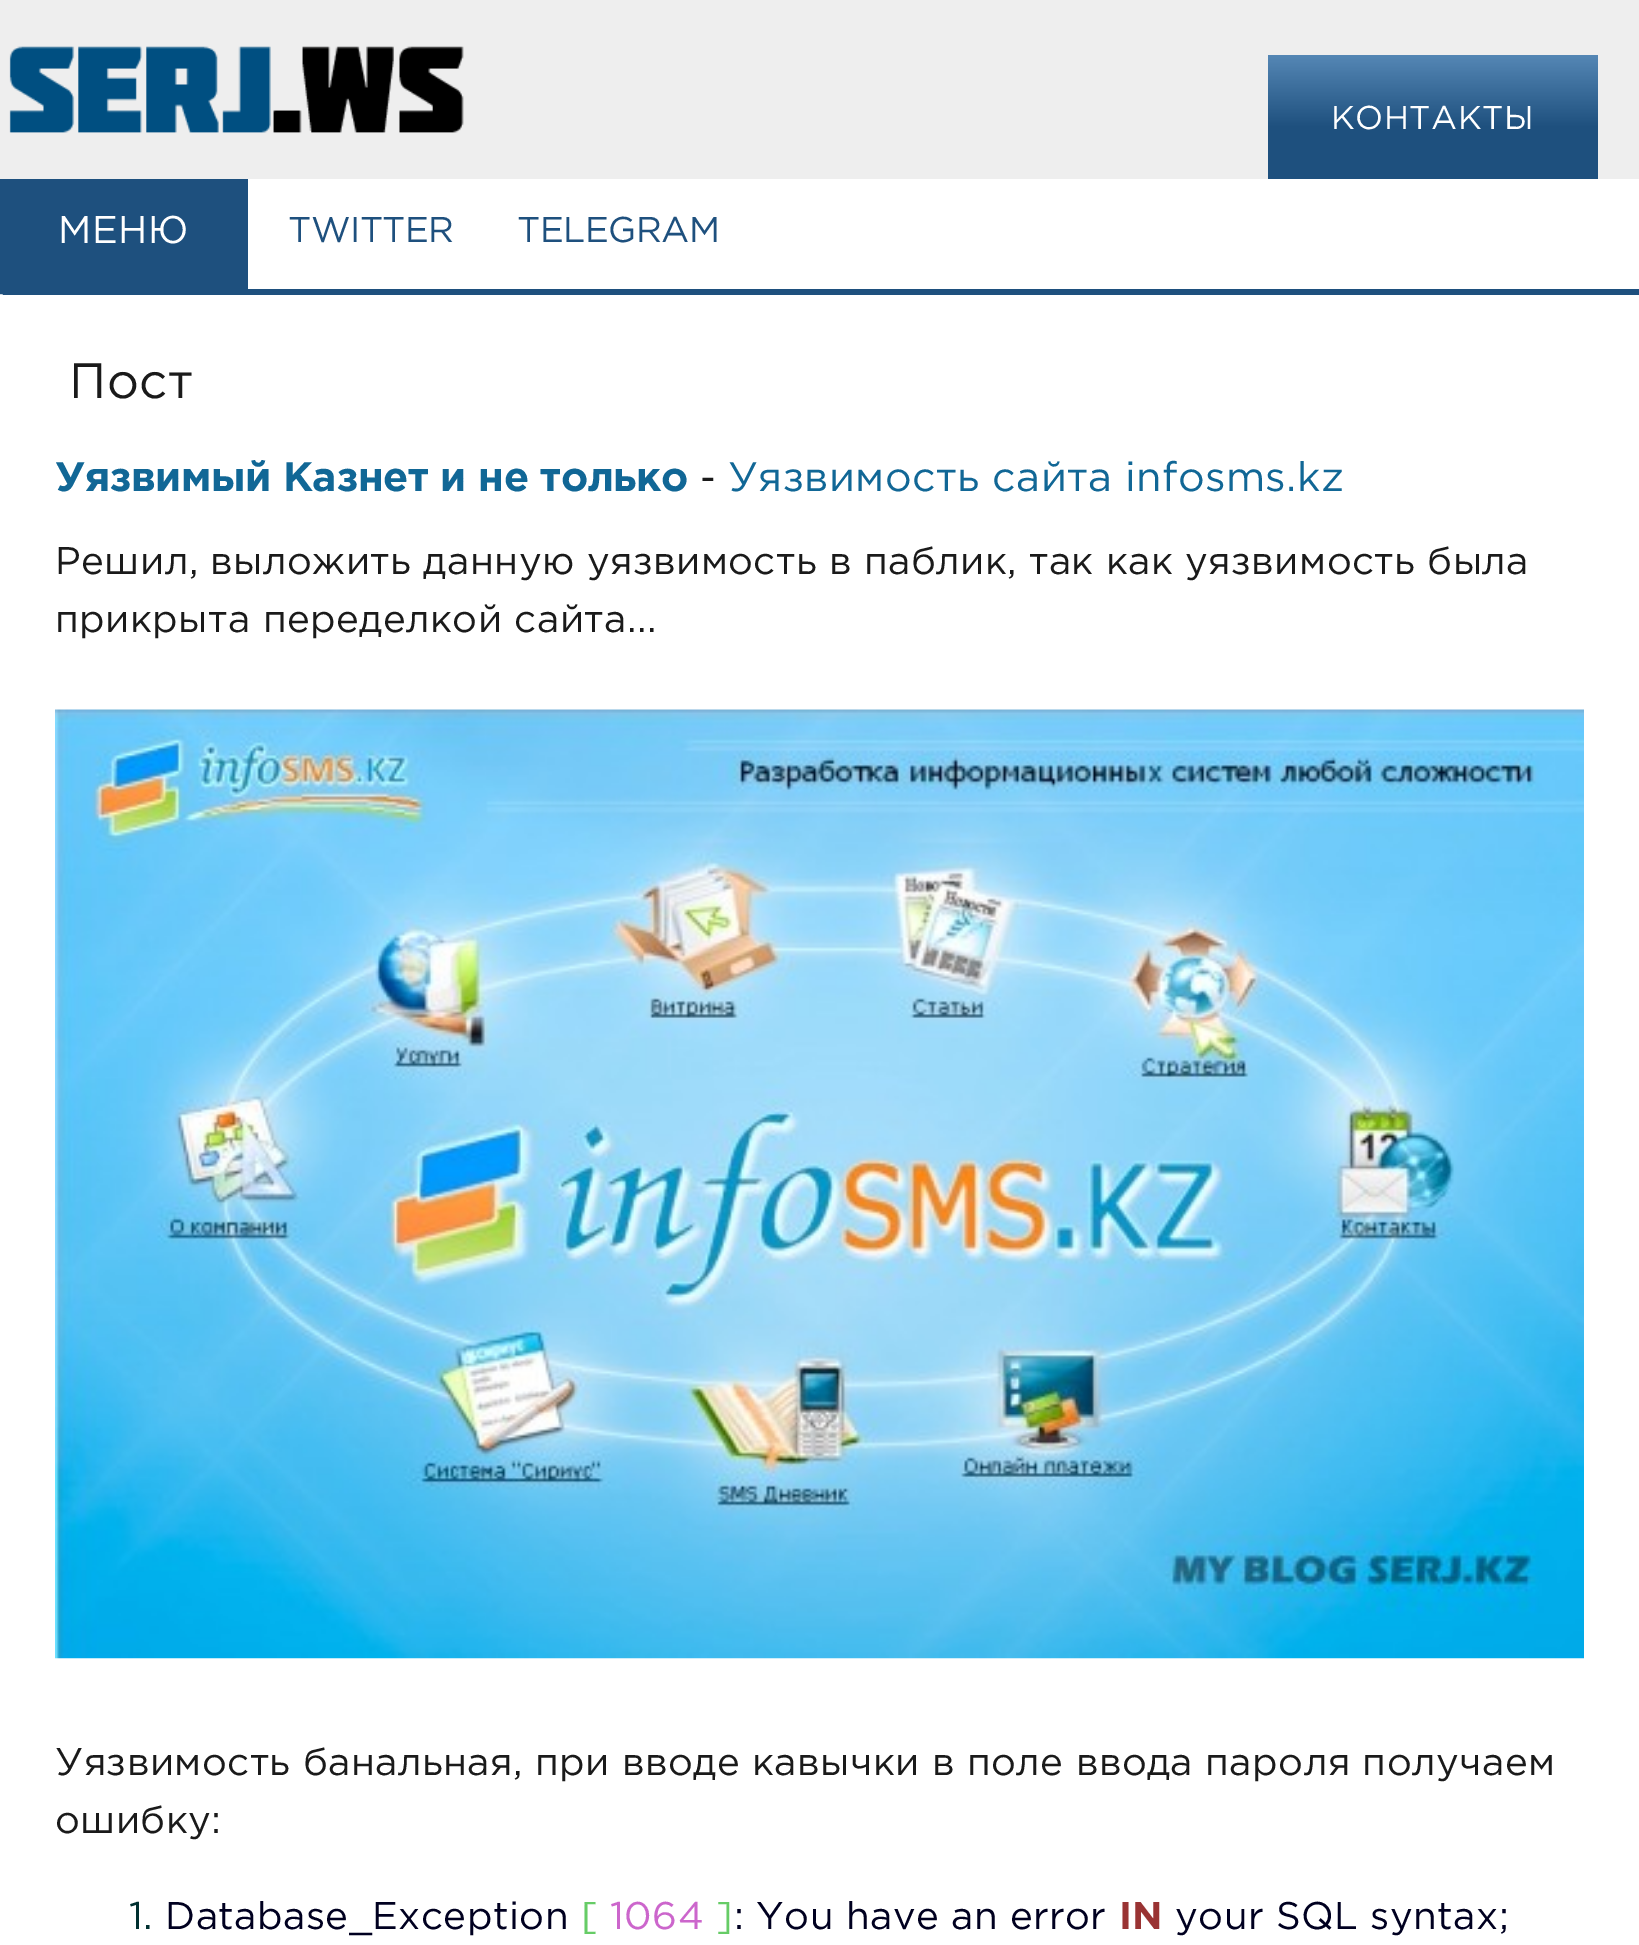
%!PS-Adobe-3.0
%%BoundingBox: 0 0 1639 1945
%%LanguageLevel: 3
%%Pages: 1
%%EndComments
%%BeginProlog
/setink { dup -16 bitshift 255 div exch dup -8 bitshift 255 and 255 div exch 255 and 255 div setrgbcolor } def
/usefont { [ exch dup neg 0 0 3 -1 roll 0 0 ] selectfont } def
/drawimage { 5 dict begin { /h /w /y /x /name } { exch def } forall
  gsave x y translate w h scale
  w h 8 [w 0 0 h 0 0] name (r) file false 3 colorimage grestore end } def
%%EndProlog
%%BeginSetup
<< /PageSize [1639 1945] >> setpagedevice
%%EndSetup
%%Page: 1 1
0 1945 translate 1 -1 scale
4 setmiterlimit
16#EEEEEE setink
0 0 1639 1945 rectfill
(img1.raw) 9 46 455 87 drawimage
gsave 1268 55 moveto 1598 55 lineto 1598 179 lineto 1268 179 lineto closepath clip newpath
<< /ShadingType 2 /ColorSpace /DeviceRGB /Coords [1433 55 1433 179] /Extend [true true] /Function << /FunctionType 3 /Domain [0 1] /Functions [<< /FunctionType 2 /Domain [0 1] /C0 [0.333 0.529 0.71] /C1 [0.118 0.314 0.494] /N 1 >> << /FunctionType 2 /Domain [0 1] /C0 [0.118 0.314 0.494] /C1 [0.118 0.314 0.494] /N 1 >>] /Bounds [0.58] /Encode [0 1 0 1] >> >> shfill grestore
/Gotham-Regular 33 usefont
16#FFFFFF setink
1331 129 moveto 0.45 0 (КОНТАКТЫ) ashow
0 179 1639 1766 rectfill
16#1E507E setink
0 179 248 110 rectfill
/Gotham-Regular 38.5 usefont
16#FFFFFF setink
58 243 moveto 0.45 0 (МЕНЮ) ashow
/Gotham-Regular 35.75 usefont
16#1E507E setink
288 242 moveto -0.5 0 (TWITTER) ashow
517 242 moveto -0.5 0 (TELEGRAM) ashow
0 289 1639 6 rectfill
(img2.raw) 0 294 3 1 drawimage
/Gotham-Regular 49.5 usefont
16#1A1A1A setink
69 398 moveto 0.45 0 (Пост) ashow
/Gotham-Bold 41.25 usefont
16#116796 setink
55 491 moveto -0.4 0 (Уязвимый Казнет и не только) ashow
/Gotham-Regular 38.5 usefont
16#1A1A1A setink
700 491 moveto 0.45 0 (-) ashow
/Gotham-Regular 41.25 usefont
16#116796 setink
728 491 moveto 0.4 0 (Уязвимость сайта infosms.kz) ashow
/Gotham-Regular 38.5 usefont
16#1A1A1A setink
55 574 moveto 0.45 0 (Решил, выложить данную уязвимость в паблик, так как уязвимость была) ashow
55 632 moveto 0.45 0 (прикрыта переделкой сайта...) ashow
(img3.raw) 55 709 1529 950 drawimage
55 1775 moveto 0.45 0 (Уязвимость банальная, при вводе кавычки в поле ввода пароля получаем) ashow
55 1833 moveto 0.45 0 (ошибку:) ashow
16#003030 setink
129 1929 moveto 0.45 0 (1.) ashow
16#000020 setink
165 1929 moveto 0.45 0 (Database_Exception) ashow
16#66CC66 setink
581 1929 moveto 0.45 0 ([) ashow
16#CC66CC setink
610 1929 moveto 0.45 0 (1064) ashow
16#66CC66 setink
716 1929 moveto 0.45 0 (]) ashow
16#000020 setink
734 1929 moveto 0.45 0 (: You have an error) ashow
/Gotham-Bold 38.5 usefont
16#993333 setink
1119 1929 moveto 0.45 0 (IN) ashow
/Gotham-Regular 38.5 usefont
16#000020 setink
1175 1929 moveto 0.45 0 (your SQL syntax;) ashow
showpage
%%EOF
